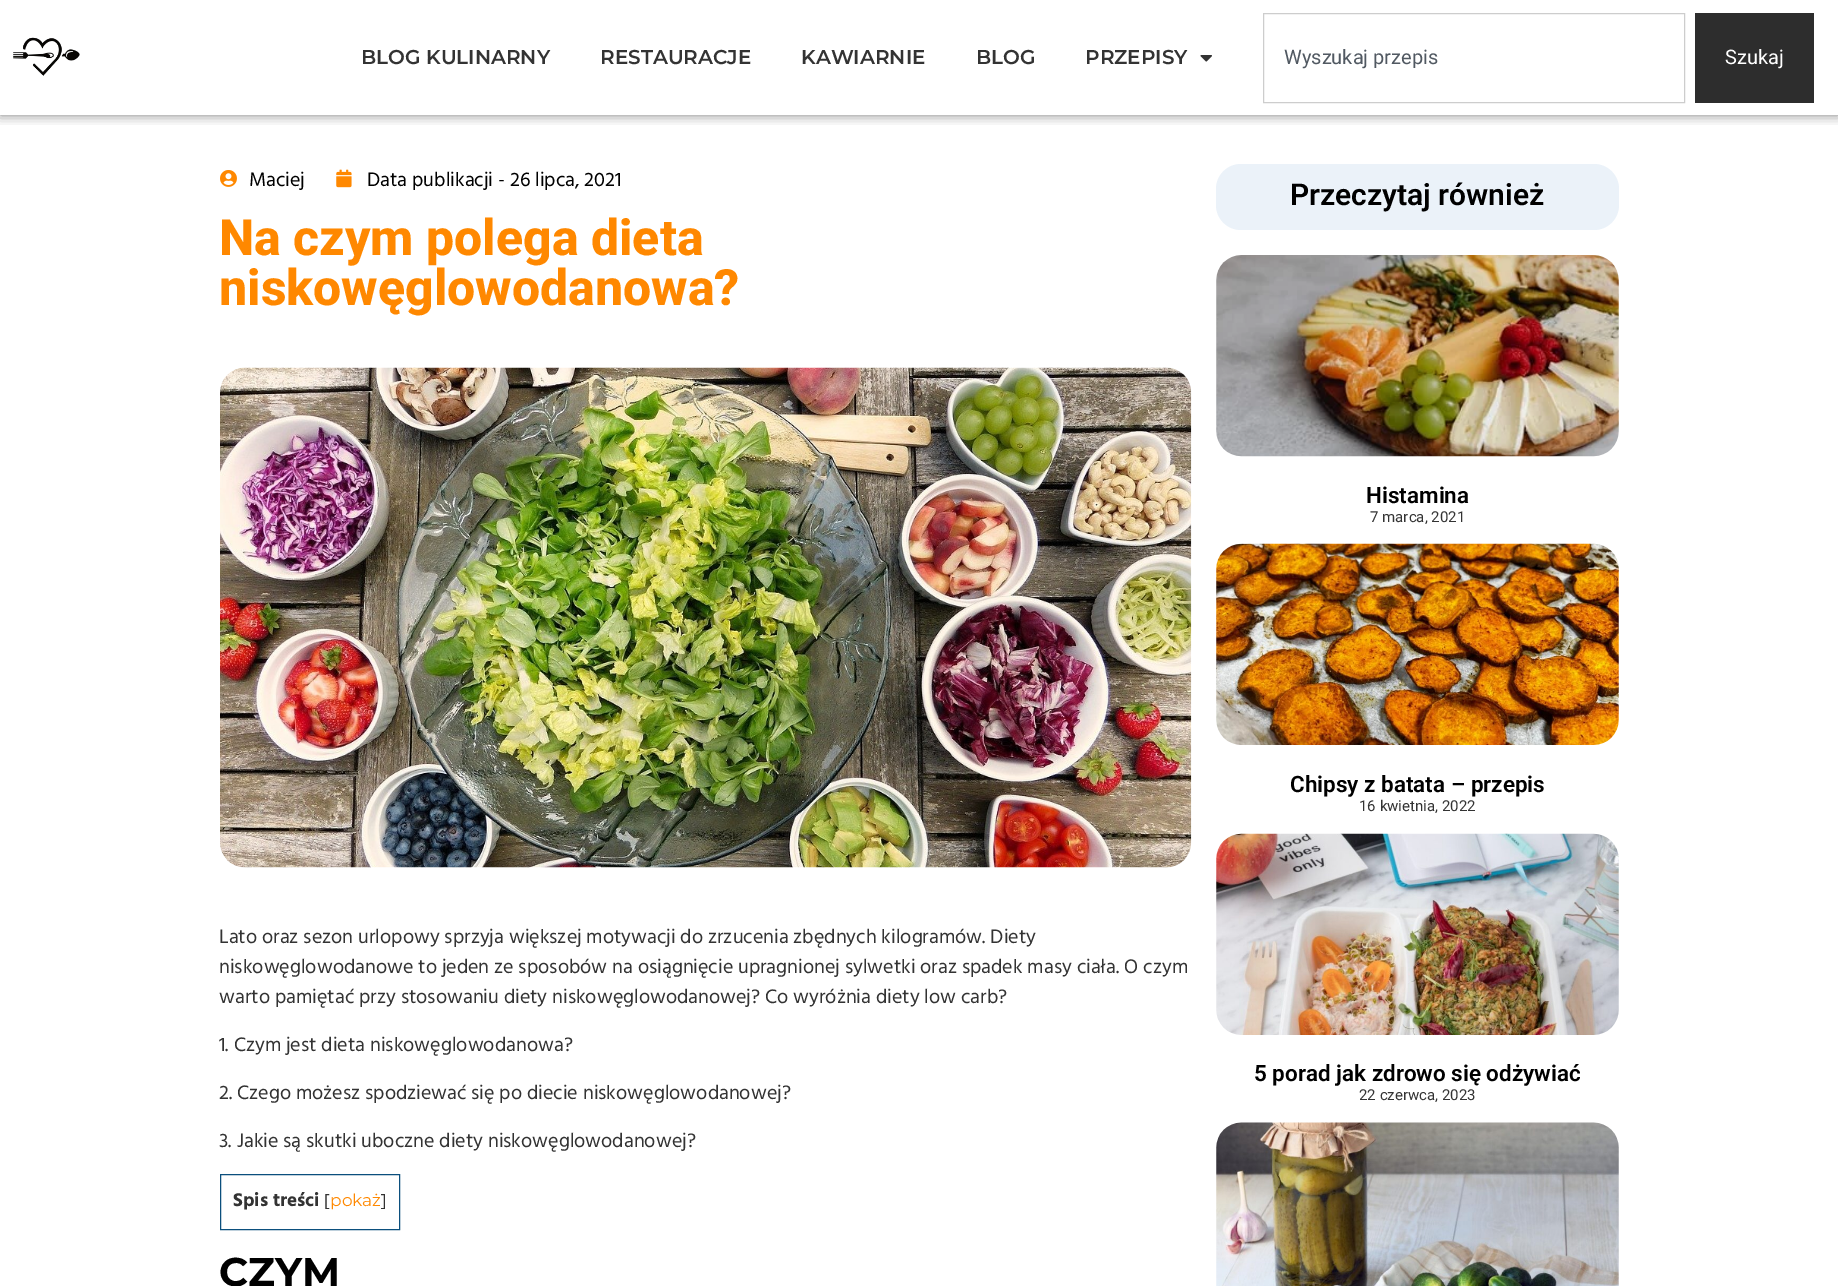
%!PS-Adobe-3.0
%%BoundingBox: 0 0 1838 1286
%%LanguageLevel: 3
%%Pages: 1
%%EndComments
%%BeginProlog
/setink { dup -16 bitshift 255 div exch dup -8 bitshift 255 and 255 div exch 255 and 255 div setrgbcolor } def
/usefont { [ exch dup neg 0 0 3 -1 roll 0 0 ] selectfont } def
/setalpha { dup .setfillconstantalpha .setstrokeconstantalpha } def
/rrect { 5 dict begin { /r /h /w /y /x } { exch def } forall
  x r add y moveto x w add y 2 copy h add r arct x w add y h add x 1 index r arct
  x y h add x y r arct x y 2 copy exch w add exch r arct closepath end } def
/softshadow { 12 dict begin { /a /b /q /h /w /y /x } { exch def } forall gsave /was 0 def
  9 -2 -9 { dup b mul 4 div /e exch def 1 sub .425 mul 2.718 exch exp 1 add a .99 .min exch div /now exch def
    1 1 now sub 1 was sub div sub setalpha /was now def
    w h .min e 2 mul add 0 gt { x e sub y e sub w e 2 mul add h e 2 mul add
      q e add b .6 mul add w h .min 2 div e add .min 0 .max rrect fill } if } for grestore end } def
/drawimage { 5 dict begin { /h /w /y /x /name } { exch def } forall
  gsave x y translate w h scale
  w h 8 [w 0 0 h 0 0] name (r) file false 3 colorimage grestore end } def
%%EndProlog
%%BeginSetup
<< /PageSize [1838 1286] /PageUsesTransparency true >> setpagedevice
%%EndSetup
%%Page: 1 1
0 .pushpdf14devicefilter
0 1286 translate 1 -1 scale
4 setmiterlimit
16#FFFFFF setink
0 0 1838 1286 rectfill
gsave
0 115 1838 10 rectclip
16#000000 setink
0 0 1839 115 0 6 0.5 softshadow
grestore
(img1.raw) 13 37 67 39 drawimage
/Montserrat-SemiBold 20 usefont
16#333333 setink
[
    [(BLOG KULINARNY) 361 64]
    [(RESTAURACJE) 600 64]
    [(KAWIARNIE) 801 64]
    [(BLOG) 976 64]
    [(PRZEPISY) 1085 64]
] { aload pop moveto show } forall
(img2.raw) 1200 55 12 7 drawimage
16#CDCDCD setink
1263.5 13.5 421 89 rectstroke
/Roboto-Regular 20 usefont
16#515962 setink
1284 64 moveto (Wyszukaj przepis) show
16#2D2D2D setink
1695 13 119 90 rectfill
16#FFFFFF setink
1725 64 moveto (Szukaj) show
(img3.raw) 220 170 17 17 drawimage
/HindMadurai-Regular 20 usefont
16#000000 setink
249 186 moveto (Maciej) show
(img4.raw) 336 169 16 19 drawimage
367 186 moveto (Data publikacji - 26 lipca, 2021) show
/Roboto-ExtraBold 50 usefont
16#FF8800 setink
219 255 moveto (Na czym polega dieta) show
219 305 moveto (niskowęglowodanowa?) show
(img5.raw) 220 367 972 501 drawimage
/HindMadurai-Regular 20 usefont
16#333333 setink
[
    [(Lato oraz sezon urlopowy sprzyja większej motywacji do zrzucenia zbędnych kilogramów. Diety) 219 943]
    [(niskowęglowodanowe to jeden ze sposobów na osiągnięcie upragnionej sylwetki oraz spadek masy ciała. O czym) 219 973]
    [(warto pamiętać przy stosowaniu diety niskowęglowodanowej? Co wyróżnia diety low carb?) 219 1003]
    [(1. Czym jest dieta niskowęglowodanowa?) 219 1051]
    [(2. Czego możesz spodziewać się po diecie niskowęglowodanowej?) 219 1099]
    [(3. Jakie są skutki uboczne diety niskowęglowodanowej?) 219 1147]
] { aload pop moveto show } forall
16#0B4F7D setink
220.5 1174.5 179 55 rectstroke
/HindMadurai-Bold 19 usefont
16#333333 setink
233 1206 moveto (Spis treści) show
/HindMadurai-Regular 17 usefont
324 1206 moveto ([) show
/Montserrat-Regular 17 usefont
16#FF8800 setink
330 1206 moveto (pokaż) show
/HindMadurai-Regular 17 usefont
16#333333 setink
381 1206 moveto (]) show
/Montserrat-Bold 40 usefont
16#000000 setink
219 1286 moveto (CZYM) show
16#EBF2F9 setink
1216 164 403 66 25 rrect fill
/Roboto-SemiBold 30 usefont
16#000000 setink
1290 205 moveto (Przeczytaj również) show
(img6.raw) 1216 255 403 202 drawimage
/Roboto-SemiBold 22.5 usefont
1366 503 moveto (Histamina) show
/Roboto-Regular 15 usefont
16#333333 setink
1370 522 moveto (7 marca, 2021) show
(img7.raw) 1216 543 403 202 drawimage
/Roboto-SemiBold 22.5 usefont
16#000000 setink
1290 792 moveto (Chipsy z batata – przepis) show
/Roboto-Regular 15 usefont
16#333333 setink
1359 811 moveto (16 kwietnia, 2022) show
(img8.raw) 1216 833 403 202 drawimage
/Roboto-SemiBold 22.5 usefont
16#000000 setink
1254 1081 moveto (5 porad jak zdrowo się odżywiać) show
/Roboto-Regular 15 usefont
16#333333 setink
1359 1100 moveto (22 czerwca, 2023) show
(img9.raw) 1216 1122 403 164 drawimage
.poppdf14devicefilter showpage
%%EOF
